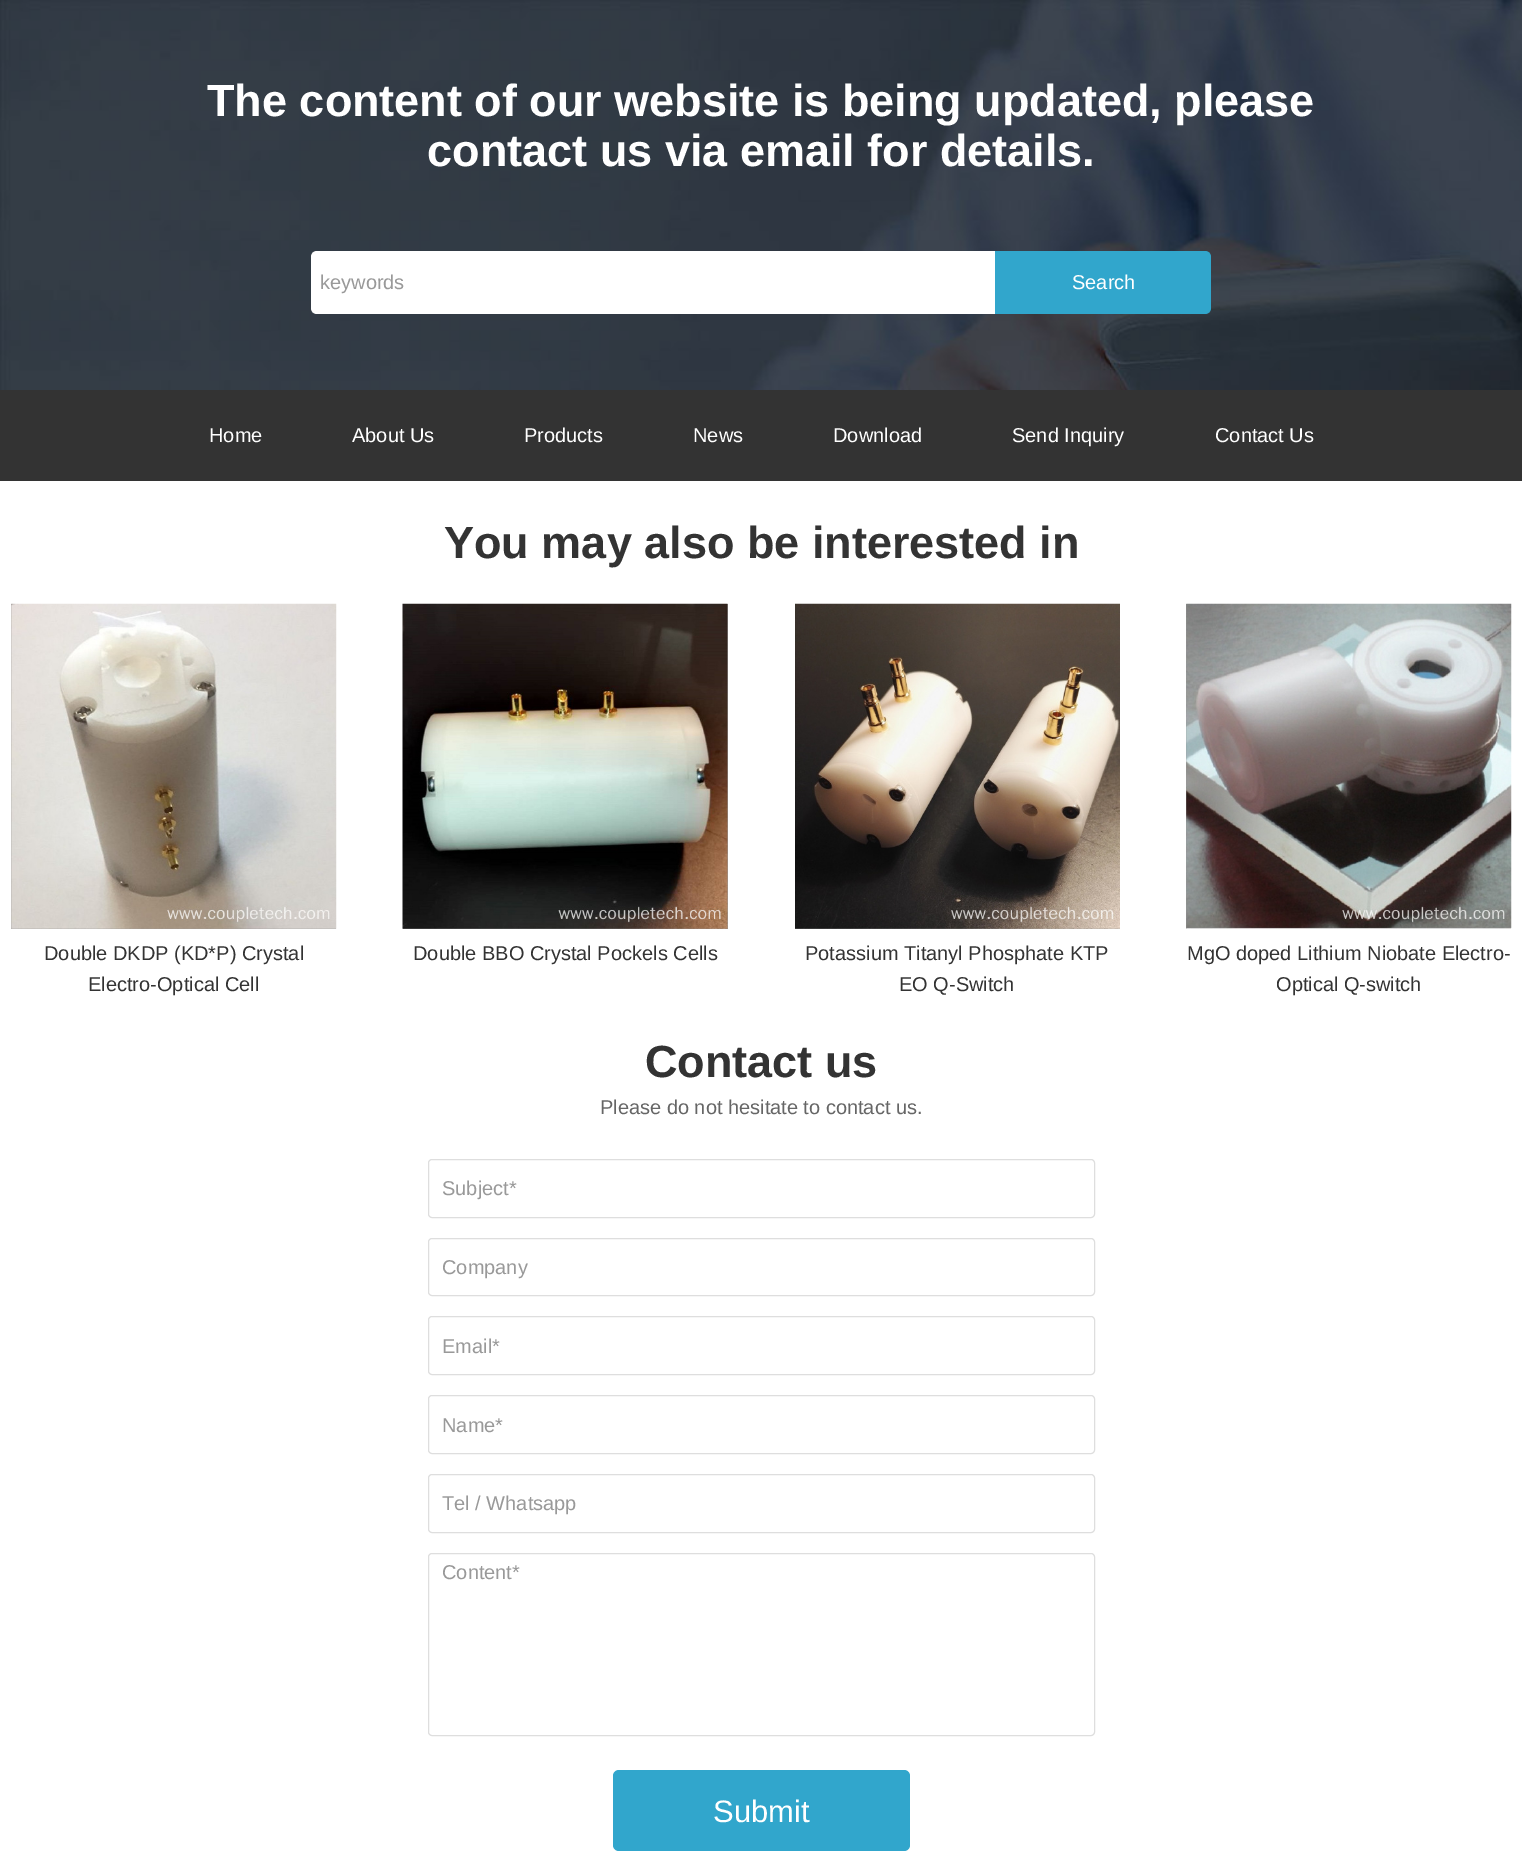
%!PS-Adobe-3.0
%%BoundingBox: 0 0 1522 1852
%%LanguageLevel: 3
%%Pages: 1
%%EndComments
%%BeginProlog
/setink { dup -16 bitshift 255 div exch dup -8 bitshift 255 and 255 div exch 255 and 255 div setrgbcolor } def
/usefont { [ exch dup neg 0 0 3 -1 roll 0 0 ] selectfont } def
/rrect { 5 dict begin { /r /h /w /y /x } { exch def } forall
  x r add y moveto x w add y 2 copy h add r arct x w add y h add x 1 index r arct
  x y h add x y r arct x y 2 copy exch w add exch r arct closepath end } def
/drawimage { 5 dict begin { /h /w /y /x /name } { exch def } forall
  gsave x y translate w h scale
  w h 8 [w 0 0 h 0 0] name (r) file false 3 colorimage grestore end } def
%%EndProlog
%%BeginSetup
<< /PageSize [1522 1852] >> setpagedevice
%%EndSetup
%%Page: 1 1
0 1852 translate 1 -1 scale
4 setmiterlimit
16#FFFFFF setink
0 0 1522 1852 rectfill
(img1.raw) 0 0 1522 390 drawimage
/LiberationSans-Bold 45 usefont
207 116 moveto (The content of our website is being updated, please) show
427 166 moveto (contact us via email for details.) show
317 251 moveto 995 251 lineto 995 314 lineto 317 314 lineto 313.5 314 311 311.5 311 308 curveto 311 257 lineto 311 253.5 313.5 251 317 251 curveto closepath fill
/LiberationSans-Regular 20 usefont
16#999999 setink
320 289 moveto (keywords) show
16#31A6CC setink
995 251 moveto 1205 251 lineto 1208.5 251 1211 253.5 1211 257 curveto 1211 308 lineto 1211 311.5 1208.5 314 1205 314 curveto 995 314 lineto closepath fill
16#FFFFFF setink
1072 289 moveto (Search) show
16#333333 setink
0 390 1522 91 rectfill
16#FFFFFF setink
[
    [(Home) 209 442]
    [(About Us) 352 442]
    [(Products) 524 442]
    [(News) 693 442]
    [(Download) 833 442]
    [(Send Inquiry) 1012 442]
    [(Contact Us) 1215 442]
] { aload pop moveto show } forall
/LiberationSans-Bold 45 usefont
16#333333 setink
444 558 moveto (You may also be interested in) show
16#999999 setink
11 604 325 325 rectfill
(img2.raw) 11 603 326 326 drawimage
/LiberationSans-Regular 20 usefont
16#333333 setink
44 960 moveto (Double DKDP \(KD*P\) Crystal) show
88 991 moveto (Electro-Optical Cell) show
16#999999 setink
403 604 325 325 rectfill
(img3.raw) 402 603 326 326 drawimage
16#333333 setink
413 960 moveto (Double BBO Crystal Pockels Cells) show
(img4.raw) 795 603 325 326 drawimage
805 960 moveto (Potassium Titanyl Phosphate KTP) show
899 991 moveto (EO Q-Switch) show
16#999999 setink
1186 604 325 325 rectfill
(img5.raw) 1186 603 326 326 drawimage
16#333333 setink
1187 960 moveto (MgO doped Lithium Niobate Electro-) show
1276 991 moveto (Optical Q-switch) show
/LiberationSans-Bold 45 usefont
645 1077 moveto (Contact us) show
/LiberationSans-Regular 20 usefont
16#666666 setink
600 1114 moveto (Please do not hesitate to contact us.) show
16#DEDEDE setink
428.5 1159.5 666 58 3.5 rrect stroke
16#999999 setink
442 1195 moveto (Subject*) show
16#DEDEDE setink
428.5 1238.5 666 57 3.5 rrect stroke
16#999999 setink
442 1274 moveto (Company) show
16#DEDEDE setink
428.5 1316.5 666 58 3.5 rrect stroke
16#999999 setink
442 1353 moveto (Email*) show
16#DEDEDE setink
428.5 1395.5 666 58 3.5 rrect stroke
16#999999 setink
442 1432 moveto (Name*) show
16#DEDEDE setink
428.5 1474.5 666 58 3.5 rrect stroke
16#999999 setink
442 1510 moveto (Tel / Whatsapp) show
16#DEDEDE setink
428.5 1553.5 666 182 3.5 rrect stroke
16#999999 setink
442 1579 moveto (Content*) show
16#31A6CC setink
613 1770 297 81 6 rrect fill
/LiberationSans-Regular 31 usefont
16#FFFFFF setink
713 1822 moveto (Submit) show
showpage
%%EOF
